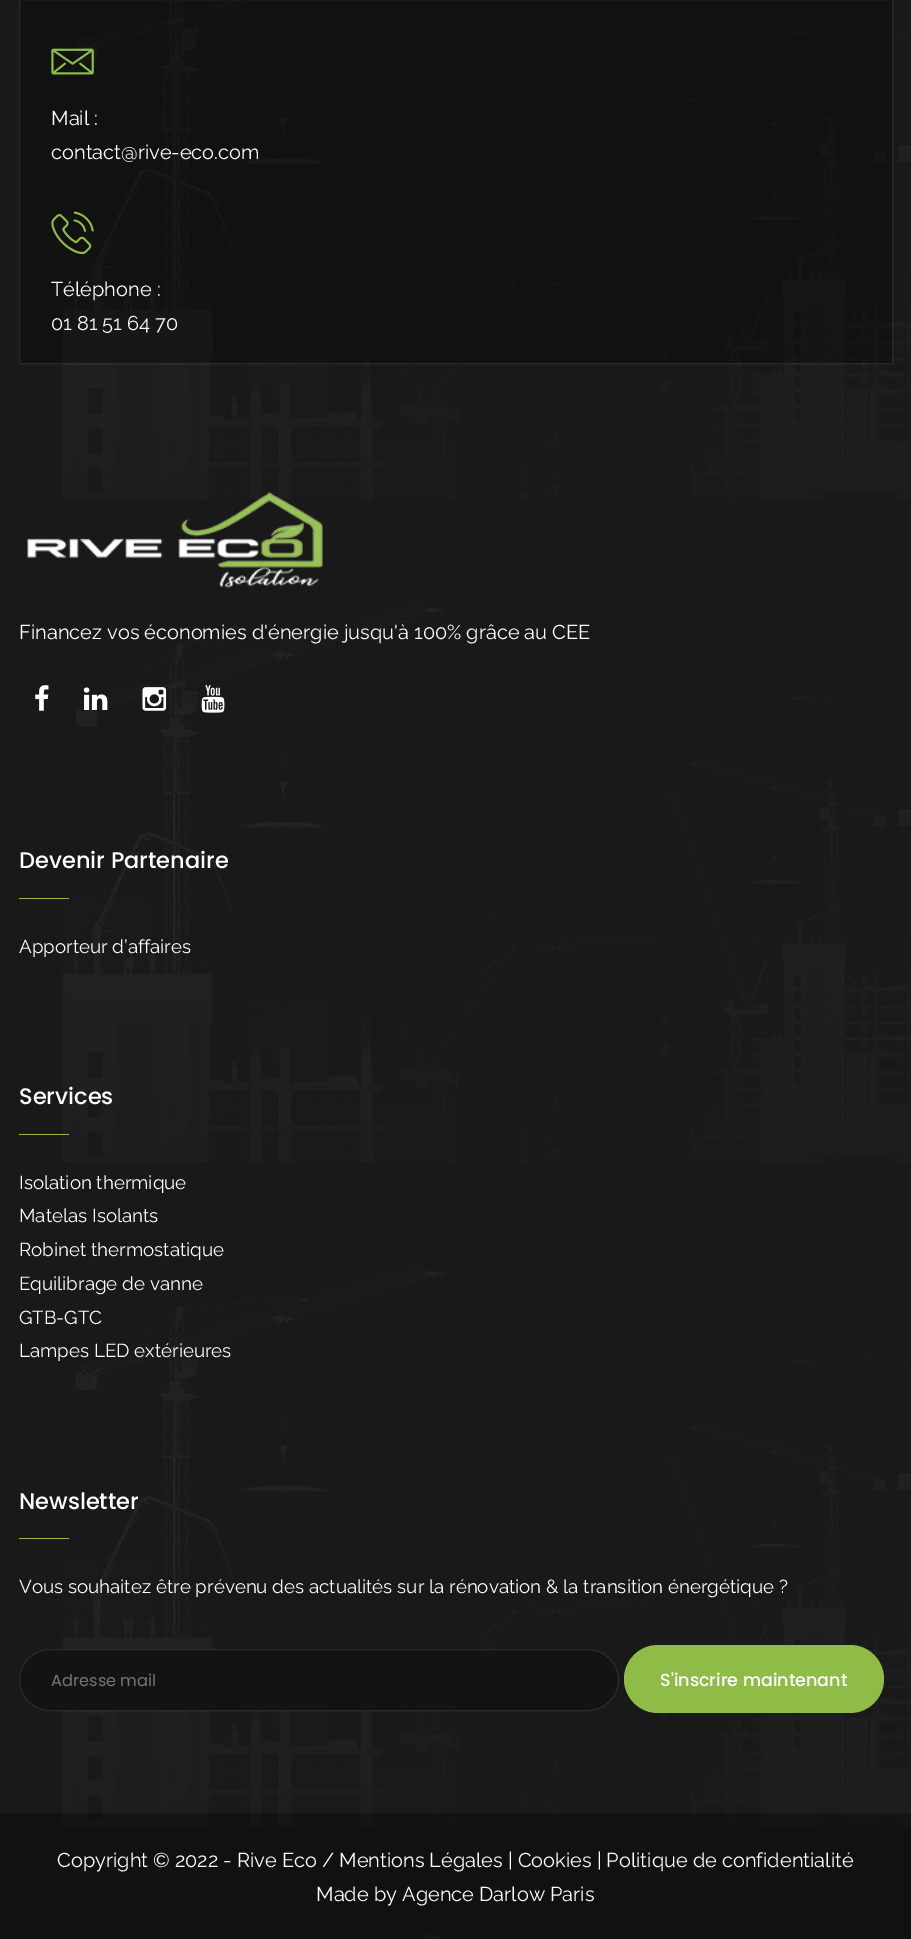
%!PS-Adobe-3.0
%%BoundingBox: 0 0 911 1939
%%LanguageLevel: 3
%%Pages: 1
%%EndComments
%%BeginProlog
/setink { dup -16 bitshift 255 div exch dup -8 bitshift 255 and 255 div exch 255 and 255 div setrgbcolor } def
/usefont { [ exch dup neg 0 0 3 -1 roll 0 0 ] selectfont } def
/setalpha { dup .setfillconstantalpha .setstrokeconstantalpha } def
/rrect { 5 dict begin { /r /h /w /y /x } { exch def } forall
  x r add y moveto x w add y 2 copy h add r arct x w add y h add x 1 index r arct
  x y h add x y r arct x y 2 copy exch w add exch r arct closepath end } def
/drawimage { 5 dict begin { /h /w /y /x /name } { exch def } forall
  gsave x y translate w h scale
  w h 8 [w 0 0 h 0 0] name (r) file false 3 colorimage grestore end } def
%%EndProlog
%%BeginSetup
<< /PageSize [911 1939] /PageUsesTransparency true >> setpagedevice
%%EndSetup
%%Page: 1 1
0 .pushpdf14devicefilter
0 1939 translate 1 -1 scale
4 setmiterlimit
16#FFFFFF setink
0 0 911 1939 rectfill
(img1.raw) 0 0 911 1939 drawimage
0.3 setalpha
16#000000 setink
19 0 874 364 rectfill
0.1 setalpha
16#FFFFFF setink
19.5 -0.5 873 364 rectstroke
1 setalpha
(img2.raw) 51 48 43 27 drawimage
/Raleway-Regular 20 usefont
51 125 moveto (Mail :) show
51 159 moveto (contact@rive-eco.com) show
(img3.raw) 51 211 43 44 drawimage
51 296 moveto (Téléphone :) show
51 330 moveto (01 81 51 64 70) show
(img4.raw) 27 492 296 96 drawimage
19 639 moveto (Financez vos économies d'énergie jusqu'à 100% grâce au CEE) show
(img5.raw) 35 685 14 26 drawimage
(img6.raw) 83 687 25 23 drawimage
(img7.raw) 142 687 25 24 drawimage
(img8.raw) 201 685 24 28 drawimage
/Poppins-Medium 22.5 usefont
19 868 moveto (Devenir Partenaire) show
16#8FBC47 setink
19 898 50 1 rectfill
/Raleway-Regular 18.75 usefont
16#FFFFFF setink
19 953 moveto (Apporteur d’affaires) show
/Poppins-Medium 22.5 usefont
19 1104 moveto (Services) show
16#8FBC47 setink
19 1134 50 1 rectfill
/Raleway-Regular 18.75 usefont
16#FFFFFF setink
[
    [(Isolation thermique) 19 1189]
    [(Matelas Isolants) 19 1222]
    [(Robinet thermostatique) 19 1256]
    [(Equilibrage de vanne) 19 1290]
    [(GTB-GTC) 19 1324]
    [(Lampes LED extérieures) 19 1357]
] { aload pop moveto show } forall
/Poppins-Medium 22.5 usefont
19 1509 moveto (Newsletter) show
16#8FBC47 setink
19 1538 50 1 rectfill
/Raleway-Regular 18.75 usefont
16#FFFFFF setink
19 1593 moveto (Vous souhaitez être prévenu des actualités sur la rénovation & la transition énergétique ?) show
16#131313 setink
19 1649 600 62 31 rrect fill
0.1 setalpha
16#FFFFFF setink
19.5 1649.5 599 61 30.5 rrect stroke
/Poppins-Regular 16.25 usefont
1 setalpha
16#757575 setink
51 1686 moveto (Adresse mail) show
16#8FBC47 setink
624 1645 260 68 34 rrect fill
/Poppins-Medium 17.5 usefont
16#FFFFFF setink
660 1686 moveto (S'inscrire maintenant) show
0.3 setalpha
16#000000 setink
0 1813 911 126 rectfill
/Raleway-Regular 20 usefont
1 setalpha
16#FFFFFF setink
57 1867 moveto (Copyright © 2022 - Rive Eco / Mentions Légales | Cookies | Politique de confidentialité) show
316 1901 moveto (Made by Agence Darlow Paris) show
.poppdf14devicefilter showpage
%%EOF
